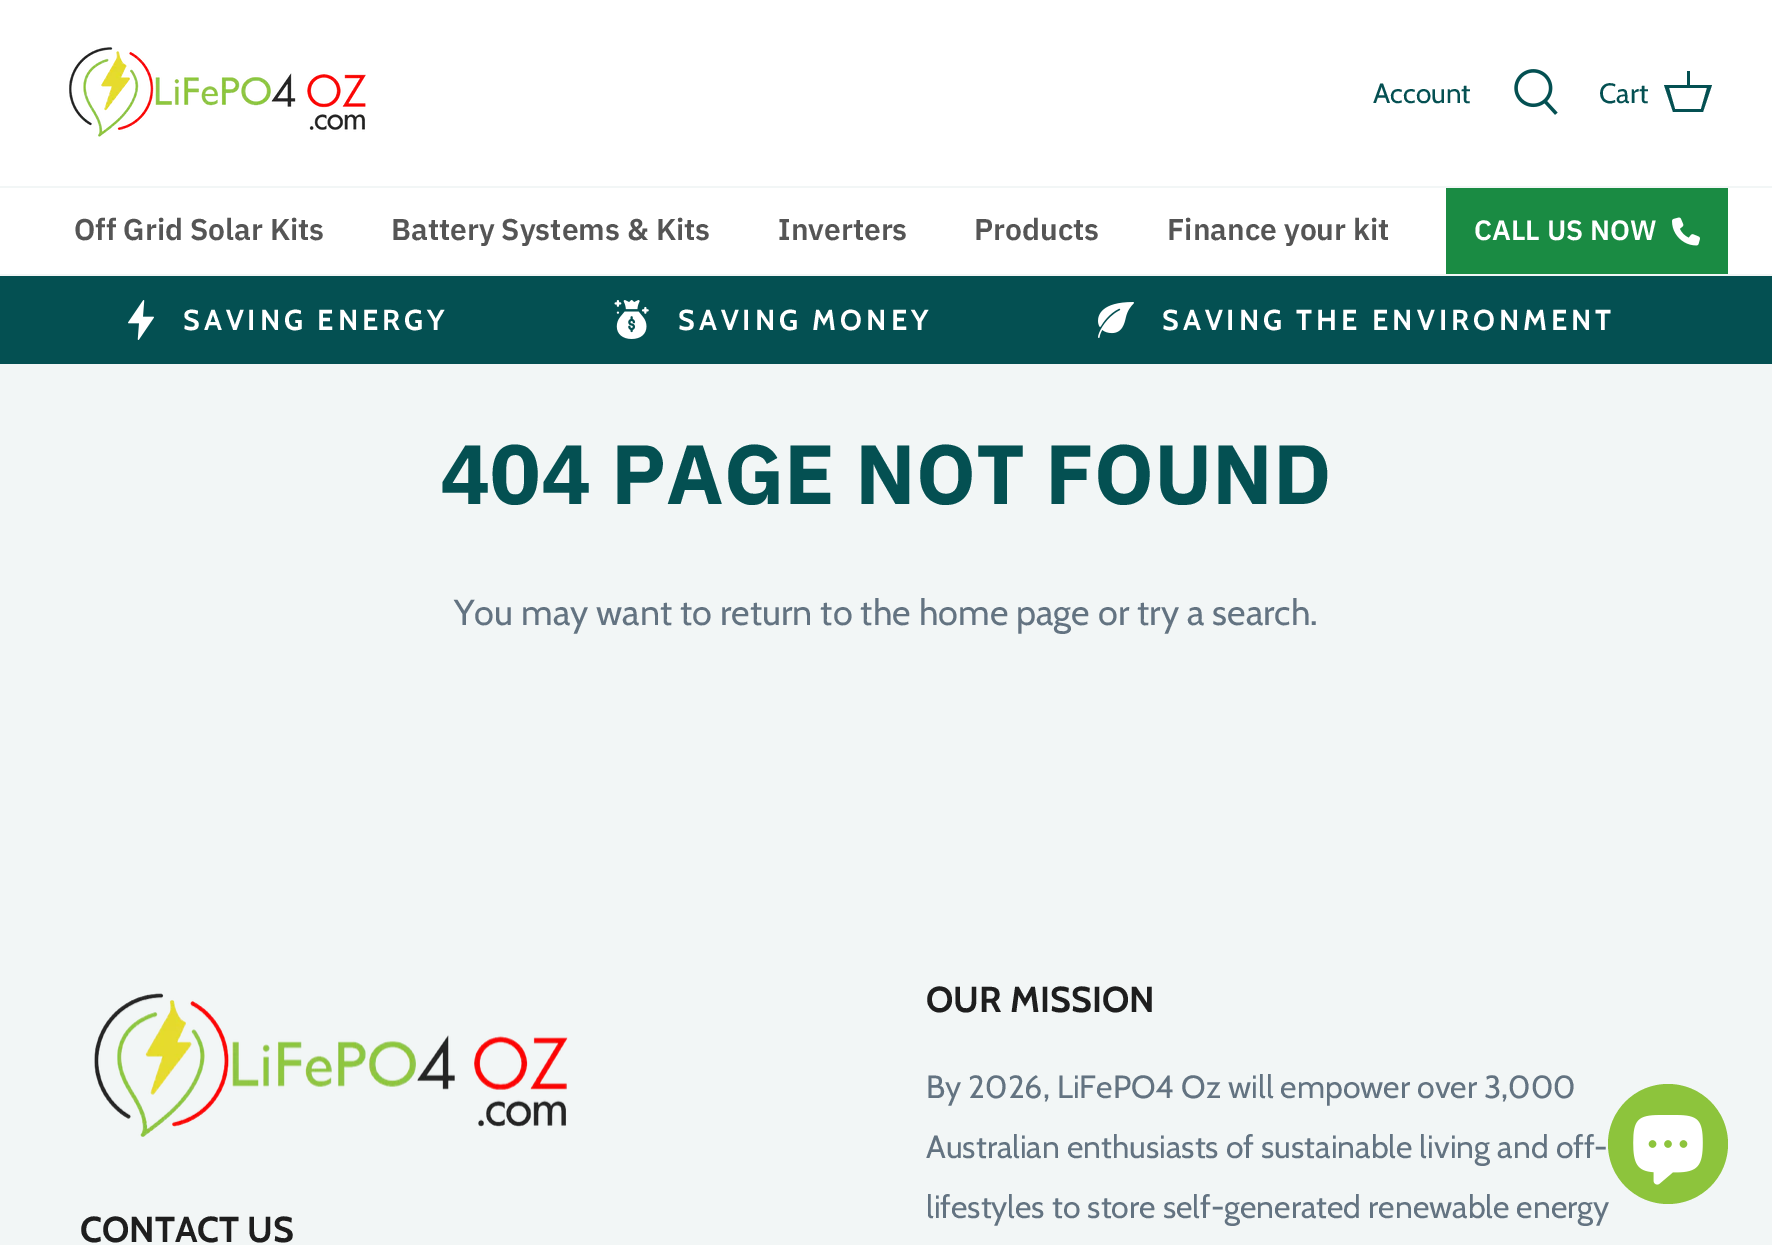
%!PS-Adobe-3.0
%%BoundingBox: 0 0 1772 1245
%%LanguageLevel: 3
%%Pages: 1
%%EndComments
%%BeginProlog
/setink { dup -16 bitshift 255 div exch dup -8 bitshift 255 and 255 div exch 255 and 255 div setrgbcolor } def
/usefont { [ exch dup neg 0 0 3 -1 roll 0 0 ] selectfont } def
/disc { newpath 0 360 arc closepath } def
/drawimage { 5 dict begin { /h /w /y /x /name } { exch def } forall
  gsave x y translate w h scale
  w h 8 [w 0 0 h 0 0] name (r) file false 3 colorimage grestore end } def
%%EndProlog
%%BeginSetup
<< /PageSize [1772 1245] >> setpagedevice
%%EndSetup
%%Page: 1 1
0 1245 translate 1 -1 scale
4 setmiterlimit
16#F2F6F6 setink
0 0 1772 1245 rectfill
16#FFFFFF setink
0 0 1772 186 rectfill
(img1.raw) 69 47 297 90 drawimage
/Cabin-Regular 28 usefont
16#045052 setink
1373 103 moveto (Account) show
(img2.raw) 1514 69 44 46 drawimage
1599 103 moveto (Cart) show
1687 85 moveto 1687 71 lineto 1690 71 lineto 1690 85 lineto 1712 85 lineto 1703 112 lineto 1673 112 lineto 1664 85 lineto closepath 1669 88 moveto 1675 109 lineto 1701 109 lineto 1707 88 lineto closepath fill
16#FFFFFF setink
0 188 1772 86 rectfill
/IBMPlexSans-SemiBold 30 usefont
16#555555 setink
[
    [(Off Grid Solar Kits) 74 240]
    [(Battery Systems & Kits) 391 240]
    [(Inverters) 778 240]
    [(Products) 974 240]
    [(Finance your kit) 1167 240]
] { aload pop moveto show } forall
16#1A8B43 setink
1446 188 282 86 rectfill
/IBMPlexSans-SemiBold 28 usefont
16#FFFFFF setink
1474 240 moveto (CALL US NOW) show
(img3.raw) 1672 217 28 29 drawimage
16#045052 setink
0 276 1772 88 rectfill
(img4.raw) 128 300 26 40 drawimage
/Cabin-Bold 28.75 usefont
16#FFFFFF setink
183 330 moveto 4 0 (SAVING ENERGY) ashow
(img5.raw) 614 300 35 39 drawimage
678 330 moveto 4 0 (SAVING MONEY) ashow
(img6.raw) 1098 302 36 36 drawimage
1162 330 moveto 4 0 (SAVING THE ENVIRONMENT) ashow
/IBMPlexSans-Bold 84 usefont
16#045052 setink
440 504 moveto (404 PAGE NOT FOUND) show
/Cabin-Regular 36 usefont
16#637381 setink
454 625 moveto (You may want to return to the home page or try a search.) show
/Cabin-Bold 36 usefont
16#1E1E1E setink
926 1012 moveto (OUR MISSION) show
/Cabin-Regular 32 usefont
16#637381 setink
[
    [(By 2026, LiFePO4 Oz will empower over 3,000) 926 1098]
    [(Australian enthusiasts of sustainable living and off-) 926 1158]
    [(lifestyles to store self-generated renewable energy) 926 1218]
] { aload pop moveto show } forall
(img7.raw) 94 993 474 144 drawimage
/Cabin-Bold 36 usefont
16#1E1E1E setink
80 1242 moveto (CONTACT US) show
16#8DC43C setink
1668 1144 60 disc fill
(img8.raw) 1633 1115 70 70 drawimage
showpage
%%EOF
